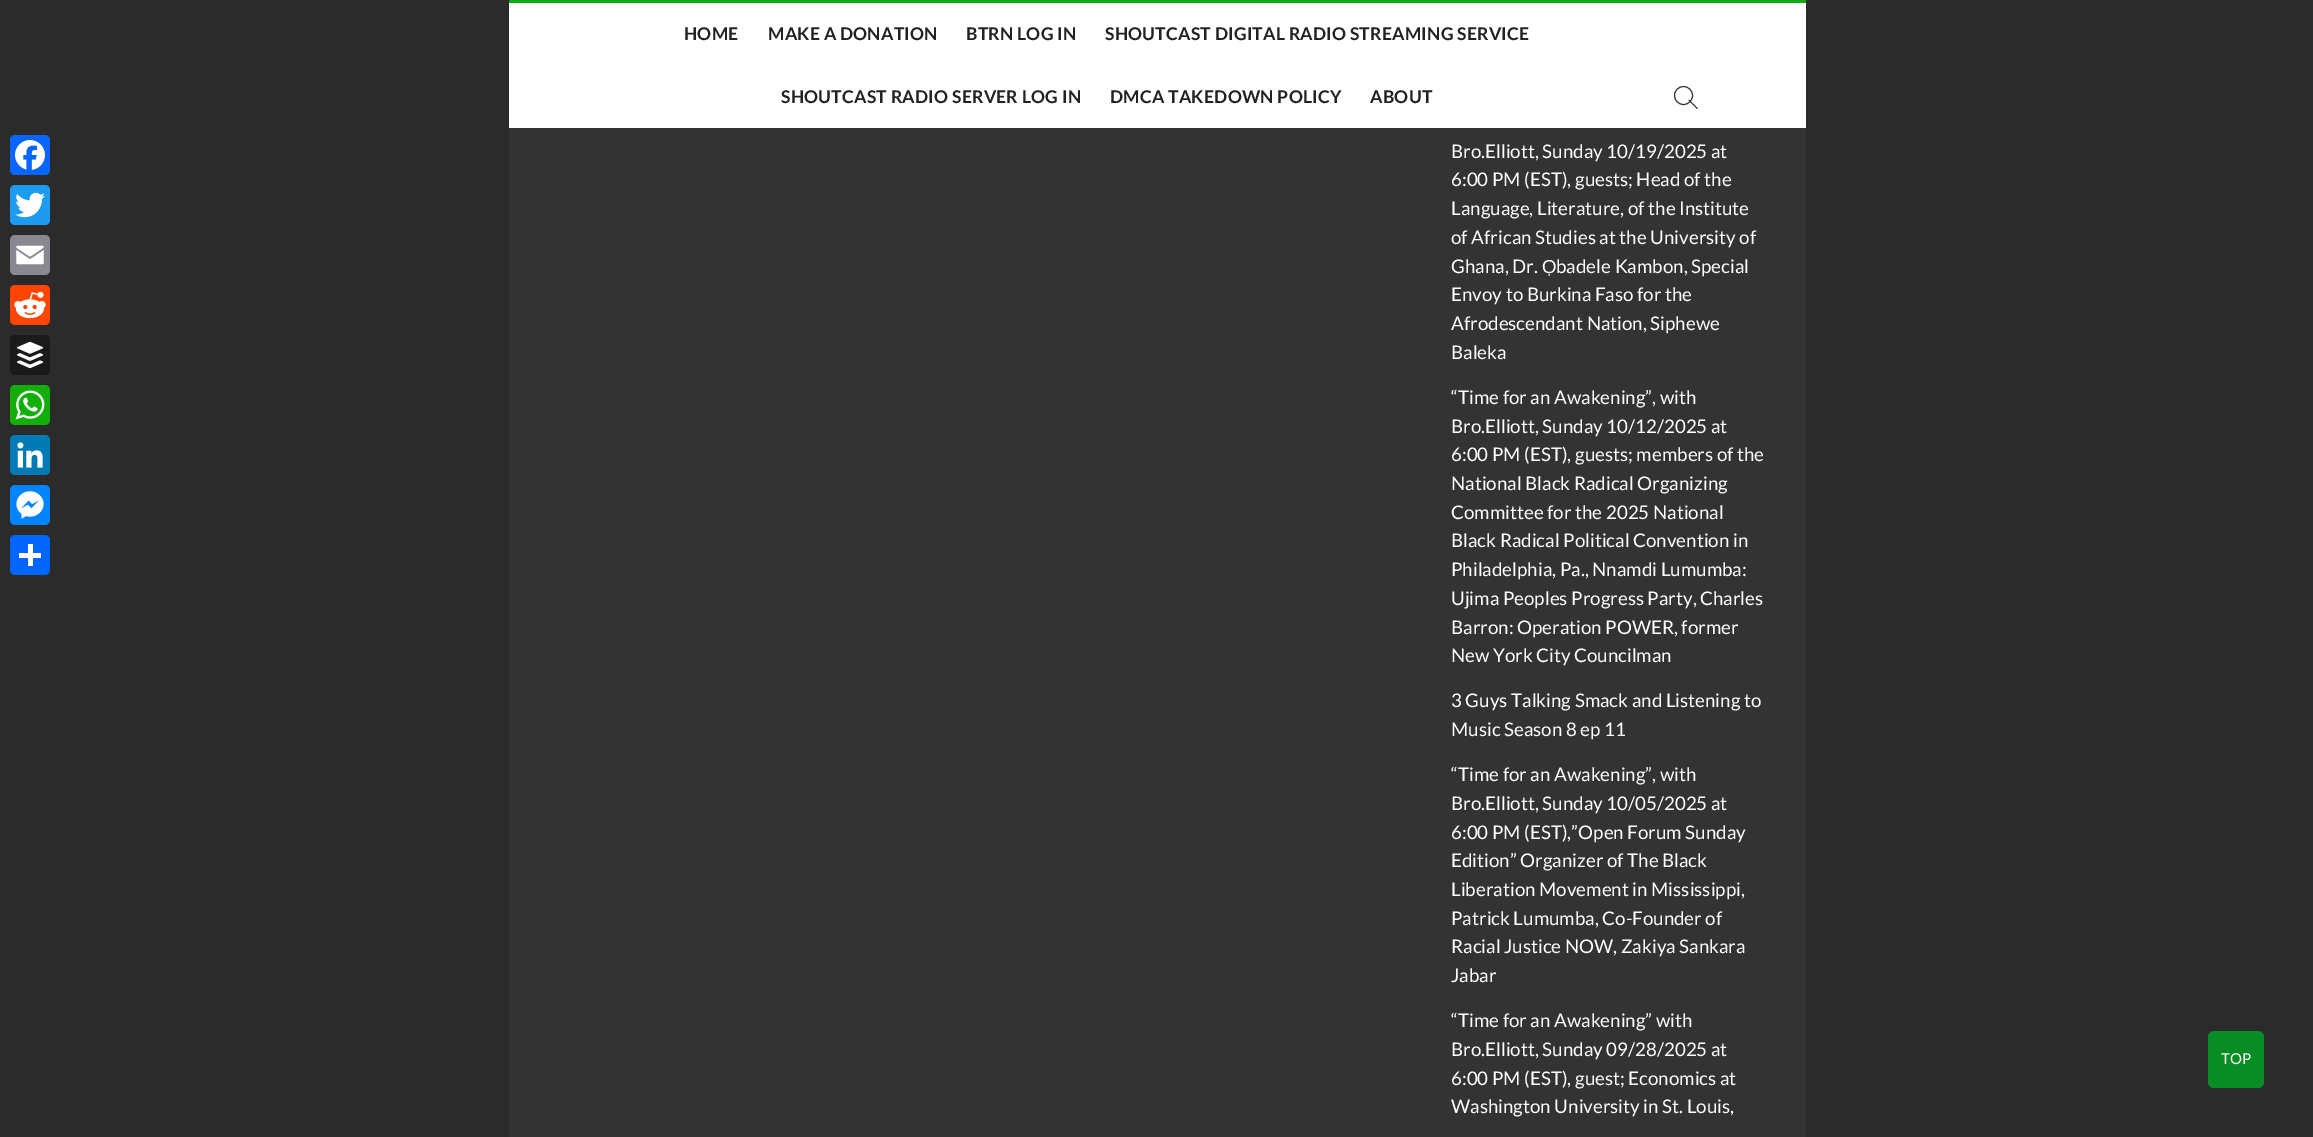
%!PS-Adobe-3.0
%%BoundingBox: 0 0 2313 1137
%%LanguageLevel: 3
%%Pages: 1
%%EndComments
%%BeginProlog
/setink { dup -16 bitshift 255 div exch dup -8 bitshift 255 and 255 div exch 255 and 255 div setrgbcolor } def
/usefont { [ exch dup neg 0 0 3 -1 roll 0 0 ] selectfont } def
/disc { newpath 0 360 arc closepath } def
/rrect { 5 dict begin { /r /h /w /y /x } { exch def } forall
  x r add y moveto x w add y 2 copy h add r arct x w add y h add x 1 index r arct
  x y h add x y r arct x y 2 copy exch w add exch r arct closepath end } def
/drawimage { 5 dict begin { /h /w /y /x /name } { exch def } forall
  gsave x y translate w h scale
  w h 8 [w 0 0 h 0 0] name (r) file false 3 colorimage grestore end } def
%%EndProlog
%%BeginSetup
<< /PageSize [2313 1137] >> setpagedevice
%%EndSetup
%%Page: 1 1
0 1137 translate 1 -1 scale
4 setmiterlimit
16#2B2B2B setink
0 0 2313 1137 rectfill
16#0866FF setink
10 135 40 40 5 rrect fill
(img1.raw) 15 140 30 30 drawimage
16#1D9BF0 setink
10 185 40 40 5 rrect fill
(img2.raw) 15 192 30 26 drawimage
16#888990 setink
10 235 40 40 5 rrect fill
(img3.raw) 16 245 28 20 drawimage
16#FF4500 setink
10 285 40 40 5 rrect fill
(img4.raw) 14 291 32 28 drawimage
16#1A1A1A setink
10 335 40 40 5 rrect fill
(img5.raw) 16 341 28 28 drawimage
16#12AF0A setink
10 385 40 40 5 rrect fill
(img6.raw) 15 390 30 30 drawimage
16#007BB5 setink
10 435 40 40 5 rrect fill
(img7.raw) 17 442 26 26 drawimage
16#0084FF setink
10 485 40 40 5 rrect fill
(img8.raw) 16 491 28 28 drawimage
16#0166FF setink
10 535 40 40 5 rrect fill
[
    [28 544 5 22 16#FFFFFF]
    [19 553 22 5 16#FFFFFF]
    [509 128 1297 1009 16#333333]
    [509 3 1297 125 16#FFFFFF]
    [509 0 1297 3 16#0FA816]
] { aload pop setink rectfill } forall
/Lato-Bold 17.5 usefont
16#222222 setink
684 40 moveto 0.25 0 (HOME) ashow
768 40 moveto 0.25 0 (MAKE A DONATION) ashow
966 40 moveto 0.25 0 (BTRN LOG IN) ashow
1105 40 moveto 0.25 0 (SHOUTCAST DIGITAL RADIO STREAMING SERVICE) ashow
781 103 moveto 0.25 0 (SHOUTCAST RADIO SERVER LOG IN) ashow
1110 103 moveto 0.25 0 (DMCA TAKEDOWN POLICY) ashow
1370 103 moveto 0.25 0 (ABOUT) ashow
16#333333 setink
1683.5 95.5 9 disc stroke
1688.5 100.5 moveto 1689 99.5 lineto 1698 108.5 lineto 1697 109 lineto closepath fill
/Lato-Regular 18.75 usefont
16#FFFFFF setink
[
    [(Bro.Elliott, Sunday 10/19/2025 at) 1451 158]
    [(6:00 PM \(EST\), guests; Head of the) 1451 186]
    [(Language, Literature, of the Institute) 1451 215]
    [(of African Studies at the University of) 1451 244]
    [(Ghana, Dr.) 1451 273]
] { aload pop moveto show } forall
/LiberationSans-Regular 18.75 usefont
1542 273 moveto (Ọ) show
/Lato-Regular 18.75 usefont
[
    [(badele Kambon, Special) 1556 273]
    [(Envoy to Burkina Faso for the) 1451 301]
    [(Afrodescendant Nation, Siphewe) 1451 330]
    [(Baleka) 1451 359]
    [(“Time for an Awakening”, with) 1451 404]
    [(Bro.Elliott, Sunday 10/12/2025 at) 1451 433]
    [(6:00 PM \(EST\), guests; members of the) 1451 461]
    [(National Black Radical Organizing) 1451 490]
    [(Committee for the 2025 National) 1451 519]
    [(Black Radical Political Convention in) 1451 547]
    [(Philadelphia, Pa., Nnamdi Lumumba:) 1451 576]
    [(Ujima Peoples Progress Party, Charles) 1451 605]
    [(Barron: Operation POWER, former) 1451 634]
    [(New York City Councilman) 1451 662]
    [(3 Guys Talking Smack and Listening to) 1451 707]
    [(Music Season 8 ep 11) 1451 736]
    [(“Time for an Awakening”, with) 1451 781]
    [(Bro.Elliott, Sunday 10/05/2025 at) 1451 810]
    [(6:00 PM \(EST\),”Open Forum Sunday) 1451 839]
    [(Edition” Organizer of The Black) 1451 867]
    [(Liberation Movement in Mississippi,) 1451 896]
    [(Patrick Lumumba, Co-Founder of) 1451 925]
    [(Racial Justice NOW, Zakiya Sankara) 1451 953]
    [(Jabar) 1451 982]
    [(“Time for an Awakening” with) 1451 1027]
    [(Bro.Elliott, Sunday 09/28/2025 at) 1451 1056]
    [(6:00 PM \(EST\), guest; Economics at) 1451 1085]
    [(Washington University in St. Louis,) 1451 1113]
] { aload pop moveto show } forall
16#088C24 setink
2208 1031 56 57 6 rrect fill
/Lato-Regular 15 usefont
16#FFFFFF setink
2221 1064 moveto (TOP) show
showpage
%%EOF
